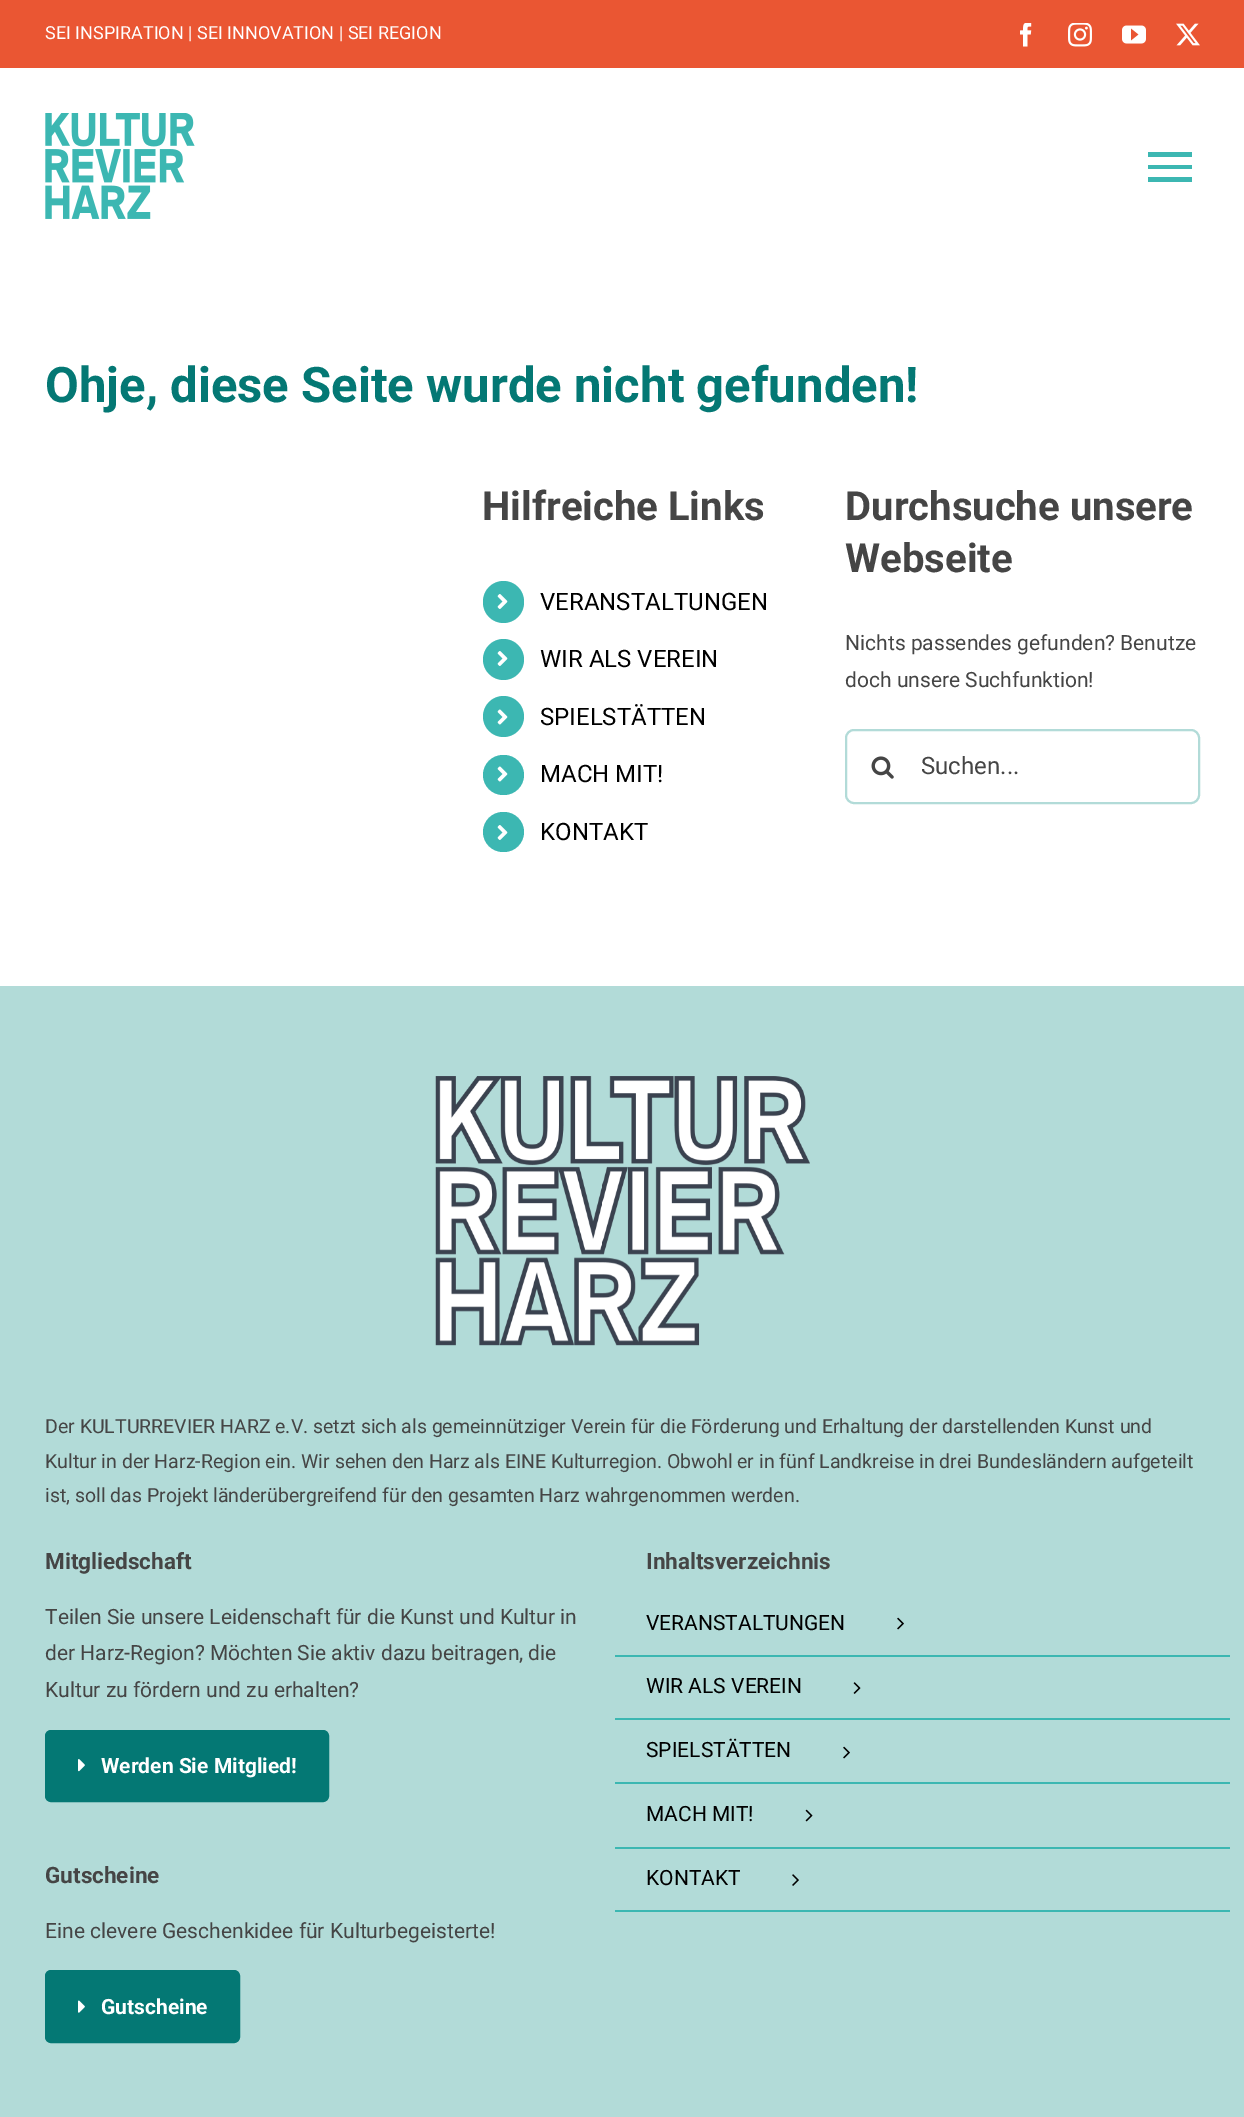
%!PS-Adobe-3.0
%%BoundingBox: 0 0 1244 2117
%%LanguageLevel: 3
%%Pages: 1
%%EndComments
%%BeginProlog
/setink { dup -16 bitshift 255 div exch dup -8 bitshift 255 and 255 div exch 255 and 255 div setrgbcolor } def
/usefont { [ exch dup neg 0 0 3 -1 roll 0 0 ] selectfont } def
/disc { newpath 0 360 arc closepath } def
/rrect { 5 dict begin { /r /h /w /y /x } { exch def } forall
  x r add y moveto x w add y 2 copy h add r arct x w add y h add x 1 index r arct
  x y h add x y r arct x y 2 copy exch w add exch r arct closepath end } def
/drawimage { 5 dict begin { /h /w /y /x /name } { exch def } forall
  gsave x y translate w h scale
  w h 8 [w 0 0 h 0 0] name (r) file false 3 colorimage grestore end } def
%%EndProlog
%%BeginSetup
<< /PageSize [1244 2117] >> setpagedevice
%%EndSetup
%%Page: 1 1
0 2117 translate 1 -1 scale
4 setmiterlimit
16#FFFFFF setink
0 0 1244 2117 rectfill
16#EA5633 setink
0 0 1244 68 rectfill
/Roboto-Regular 18 usefont
16#FFFFFF setink
45 39 moveto (SEI INSPIRATION | SEI INNOVATION | SEI REGION) show
(img1.raw) 1020 23 12 24 drawimage
(img2.raw) 1068 23 24 24 drawimage
(img3.raw) 1122 25 24 19 drawimage
(img4.raw) 1176 23 24 23 drawimage
(img5.raw) 45 113 150 106 drawimage
16#3CB7B2 setink
1148 152 moveto 1192 152 lineto 1192 157 lineto 1148 157 lineto closepath 1148 169 moveto 1148 165 lineto 1192 165 lineto 1192 169 lineto closepath 1148 182 moveto 1148 177 lineto 1192 177 lineto 1192 182 lineto closepath fill
/Roboto-Bold 49.1 usefont
16#047874 setink
45 402 moveto (Ohje, diese Seite wurde nicht gefunden!) show
/Roboto-Bold 40.1 usefont
16#454545 setink
482 520 moveto (Hilfreiche Links) show
16#3CB7B2 setink
483 581 41 42 20.5 rrect fill
(img6.raw) 497 594 11 15 drawimage
/Roboto-Regular 24 usefont
16#000000 setink
540 610 moveto (VERANSTALTUNGEN) show
16#3CB7B2 setink
503.5 659.5 20.5 disc fill
(img6.raw) 497 651 11 15 drawimage
16#000000 setink
540 667 moveto (WIR ALS VEREIN) show
16#3CB7B2 setink
503.5 716.5 20.5 disc fill
(img7.raw) 497 709 11 16 drawimage
16#000000 setink
540 725 moveto (SPIELSTÄTTEN) show
16#3CB7B2 setink
483 755 41 40 20 rrect fill
(img7.raw) 497 766 11 16 drawimage
16#000000 setink
540 782 moveto (MACH MIT!) show
16#3CB7B2 setink
483 812 41 40 20 rrect fill
(img6.raw) 497 825 11 15 drawimage
16#000000 setink
540 840 moveto (KONTAKT) show
/Roboto-Bold 40.1 usefont
16#454545 setink
845 520 moveto (Durchsuche unsere) show
845 572 moveto (Webseite) show
/Roboto-Regular 21 usefont
845 650 moveto (Nichts passendes gefunden? Benutze) show
845 687 moveto (doch unsere Suchfunktion!) show
16#B2DBD8 setink
2 setlinewidth
846 730 353 73 8 rrect stroke
(img8.raw) 871 756 23 23 drawimage
/Roboto-Regular 24 usefont
16#454545 setink
921 774 moveto (Suchen...) show
16#B2DBD8 setink
0 986 1244 1131 rectfill
(img9.raw) 435 1076 375 270 drawimage
/Roboto-Regular 19.5 usefont
16#454545 setink
[
    [(Der KULTURREVIER HARZ e.V. setzt sich als gemeinnütziger Verein für die Förderung und Erhaltung der darstellenden Kunst und) 45 1433]
    [(Kultur in der Harz-Region ein. Wir sehen den Harz als EINE Kulturregion. Obwohl er in fünf Landkreise in drei Bundesländern aufgeteilt) 45 1468]
    [(ist, soll das Projekt länderübergreifend für den gesamten Harz wahrgenommen werden.) 45 1502]
] { aload pop moveto show } forall
/Roboto-Bold 22.5 usefont
45 1569 moveto (Mitgliedschaft) show
/Roboto-Regular 21 usefont
[
    [(Teilen Sie unsere Leidenschaft für die Kunst und Kultur in) 45 1624]
    [(der Harz-Region? Möchten Sie aktiv dazu beitragen, die) 45 1660]
    [(Kultur zu fördern und zu erhalten?) 45 1697]
] { aload pop moveto show } forall
16#047874 setink
46.5 1731.5 281 69 4.5 rrect gsave fill grestore
3 setlinewidth
stroke
(img10.raw) 78 1759 7 13 drawimage
/Roboto-Bold 21 usefont
16#FFFFFF setink
101 1773 moveto (Werden Sie Mitglied!) show
/Roboto-Bold 22.5 usefont
16#454545 setink
45 1883 moveto (Gutscheine) show
/Roboto-Regular 21 usefont
45 1938 moveto (Eine clevere Geschenkidee für Kulturbegeisterte!) show
16#047874 setink
46.5 1971.5 192 70 4.5 rrect gsave fill grestore
stroke
(img11.raw) 78 2000 7 13 drawimage
/Roboto-Bold 21 usefont
16#FFFFFF setink
101 2014 moveto (Gutscheine) show
/Roboto-Bold 22.5 usefont
16#454545 setink
646 1569 moveto (Inhaltsverzeichnis) show
16#3CB7B2 setink
615 1655 615 2 rectfill
/Roboto-Regular 21 usefont
16#000000 setink
646 1630 moveto (VERANSTALTUNGEN) show
(img12.raw) 897 1617 7 13 drawimage
16#3CB7B2 setink
615 1718 615 2 rectfill
16#000000 setink
646 1693 moveto (WIR ALS VEREIN) show
(img13.raw) 853 1682 8 12 drawimage
16#3CB7B2 setink
615 1782 615 2 rectfill
16#000000 setink
646 1757 moveto (SPIELSTÄTTEN) show
(img12.raw) 843 1746 7 13 drawimage
16#3CB7B2 setink
615 1847 615 2 rectfill
16#000000 setink
646 1821 moveto (MACH MIT!) show
(img14.raw) 805 1809 8 13 drawimage
16#3CB7B2 setink
615 1910 615 2 rectfill
16#000000 setink
646 1885 moveto (KONTAKT) show
(img15.raw) 792 1874 7 12 drawimage
showpage
%%EOF
